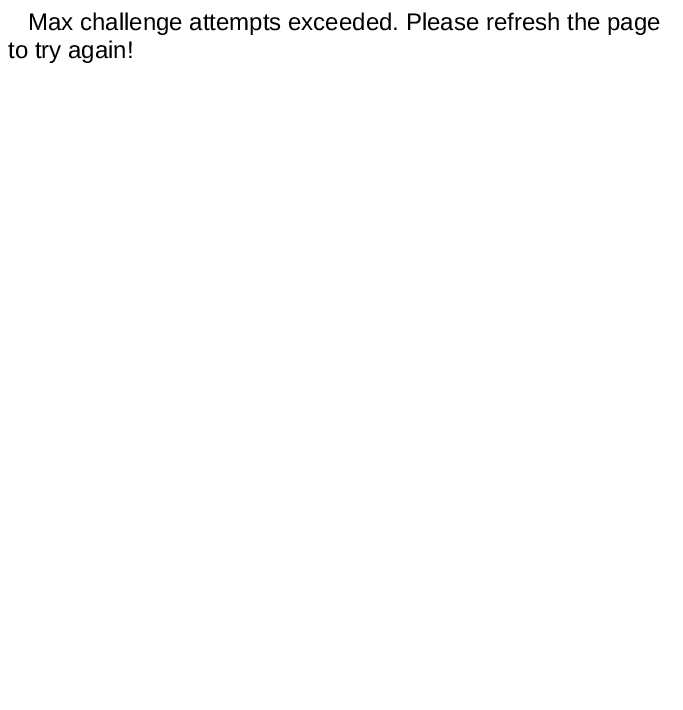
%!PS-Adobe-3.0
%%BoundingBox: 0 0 683 710
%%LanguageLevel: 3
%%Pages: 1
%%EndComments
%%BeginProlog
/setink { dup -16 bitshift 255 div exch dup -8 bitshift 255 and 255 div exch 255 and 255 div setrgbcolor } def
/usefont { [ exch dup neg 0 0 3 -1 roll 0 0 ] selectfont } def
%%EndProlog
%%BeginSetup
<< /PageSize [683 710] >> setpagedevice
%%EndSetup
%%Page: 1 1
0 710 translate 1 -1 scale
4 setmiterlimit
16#FFFFFF setink
0 0 683 710 rectfill
/LiberationSans-Regular 24 usefont
16#000000 setink
28 30 moveto (Max challenge attempts exceeded. Please refresh the page) show
8 58 moveto (to try again!) show
showpage
%%EOF
